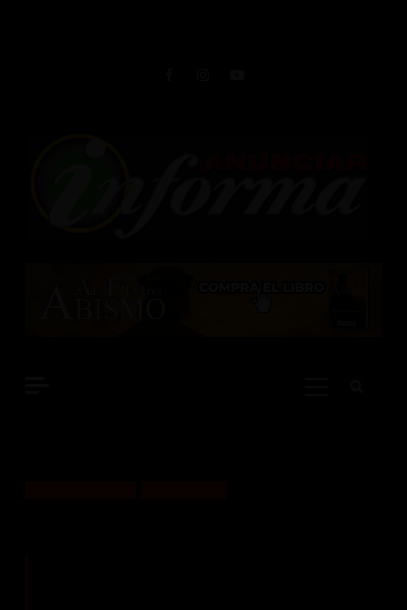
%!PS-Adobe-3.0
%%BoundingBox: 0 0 407 610
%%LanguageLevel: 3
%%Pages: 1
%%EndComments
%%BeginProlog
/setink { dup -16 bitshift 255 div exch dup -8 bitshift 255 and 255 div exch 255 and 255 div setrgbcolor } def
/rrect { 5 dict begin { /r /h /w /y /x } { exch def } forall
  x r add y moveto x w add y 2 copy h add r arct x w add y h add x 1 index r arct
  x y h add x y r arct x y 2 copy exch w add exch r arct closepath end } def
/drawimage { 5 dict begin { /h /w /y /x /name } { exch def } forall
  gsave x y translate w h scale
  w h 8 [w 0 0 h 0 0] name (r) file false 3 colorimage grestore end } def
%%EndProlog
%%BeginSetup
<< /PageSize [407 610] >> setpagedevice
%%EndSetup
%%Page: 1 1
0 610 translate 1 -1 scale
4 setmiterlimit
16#000000 setink
0 0 407 610 rectfill
(img1.raw) 165 68 8 13 drawimage
(img2.raw) 197 69 12 12 drawimage
(img3.raw) 230 70 14 10 drawimage
(img4.raw) 30 134 339 107 drawimage
(img5.raw) 25 263 357 74 drawimage
16#0A0A0A setink
25 377 20 3 1.5 rrect fill
25 384 24 3 1.5 rrect fill
25 391 14 3 1.5 rrect fill
[
    [305 386 23 2 16#0A0A0A]
    [305 378 23 2 16#0A0A0A]
    [305 394 23 2 16#0A0A0A]
] { aload pop setink rectfill } forall
(img6.raw) 350 380 13 13 drawimage
[
    [25 481 111 18 16#090201]
    [141 481 85 18 16#090201]
    [25 555 3 55 16#090201]
] { aload pop setink rectfill } forall
showpage
%%EOF
